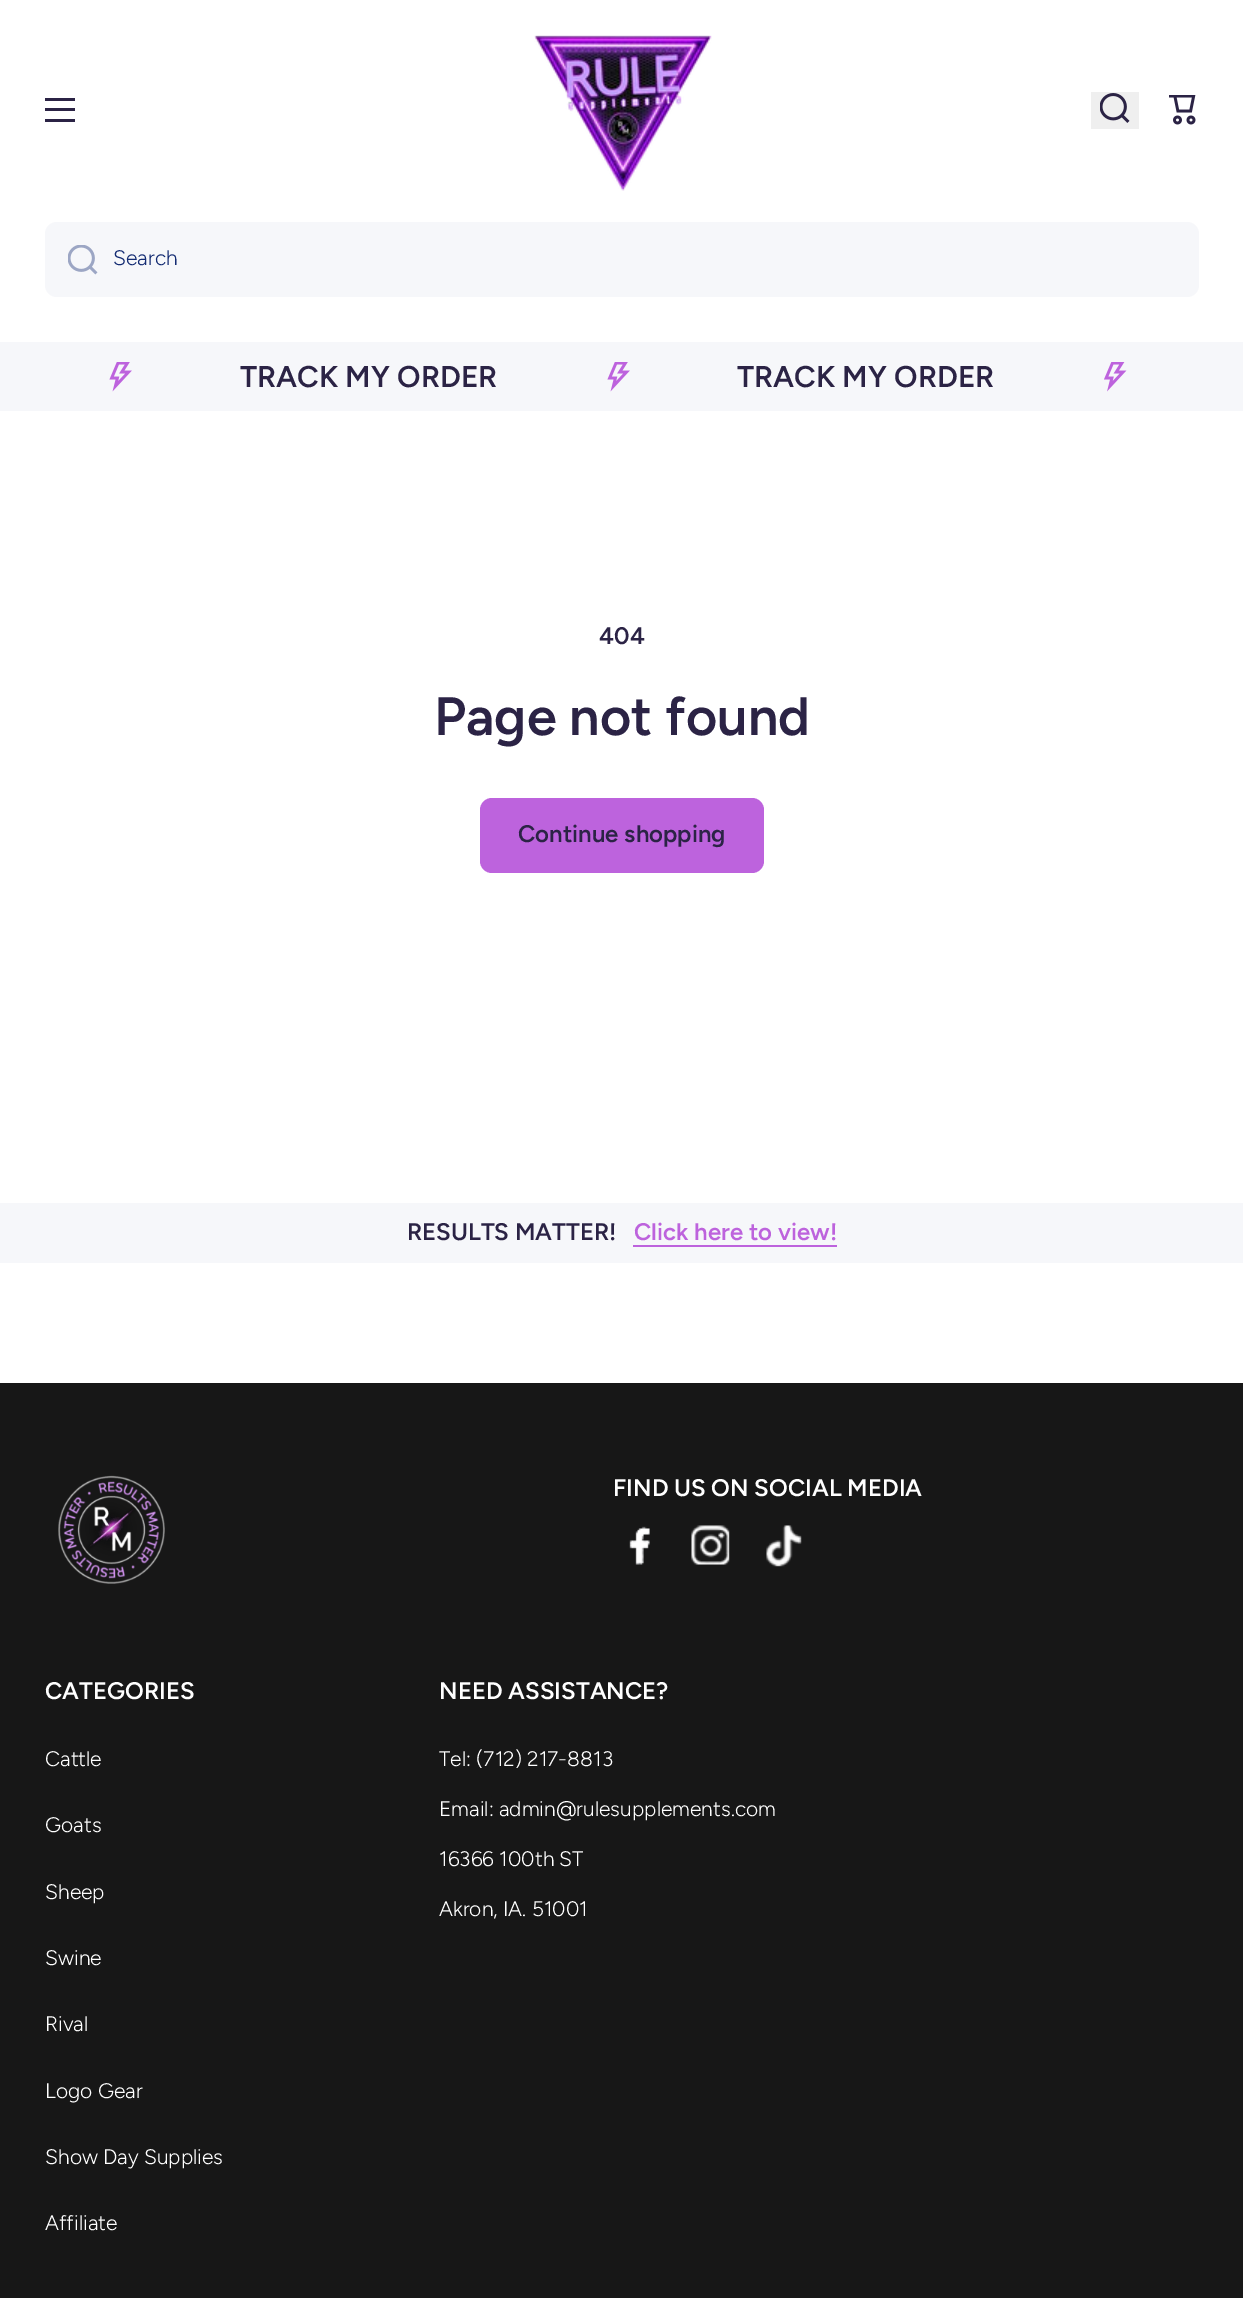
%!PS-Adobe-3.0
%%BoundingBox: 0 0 1243 2298
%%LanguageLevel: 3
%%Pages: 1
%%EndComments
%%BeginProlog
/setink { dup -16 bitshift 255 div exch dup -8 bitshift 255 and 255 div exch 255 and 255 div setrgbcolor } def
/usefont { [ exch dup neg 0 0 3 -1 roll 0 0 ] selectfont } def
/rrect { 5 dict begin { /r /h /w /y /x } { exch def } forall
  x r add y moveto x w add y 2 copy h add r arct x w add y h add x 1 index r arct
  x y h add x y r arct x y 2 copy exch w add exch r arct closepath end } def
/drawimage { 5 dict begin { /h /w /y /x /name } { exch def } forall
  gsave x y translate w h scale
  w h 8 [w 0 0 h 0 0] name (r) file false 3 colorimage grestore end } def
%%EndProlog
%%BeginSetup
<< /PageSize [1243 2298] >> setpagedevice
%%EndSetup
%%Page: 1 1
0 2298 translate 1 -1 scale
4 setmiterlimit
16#FFFFFF setink
0 0 1243 2298 rectfill
[
    [45 98 30 3 16#2B2345]
    [45 108 30 3 16#2B2345]
    [45 119 30 3 16#2B2345]
] { aload pop setink rectfill } forall
(img1.raw) 534 35 178 156 drawimage
16#EFEFEF setink
1091 92 48 37 rectfill
(img2.raw) 1100 93 30 30 drawimage
(img3.raw) 1169 95 27 30 drawimage
16#F6F7FA setink
45 222 1154 75 12 rrect fill
(img4.raw) 68 245 30 30 drawimage
/Figtree-Light 21 usefont
16#142C73 setink
113 265 moveto (Search) show
16#F6F7FA setink
0 342 1243 69 rectfill
(img5.raw) 109 362 23 30 drawimage
/Figtree-SemiBold 30 usefont
16#2B2345 setink
240 387 moveto (TRACK MY ORDER) show
(img5.raw) 607 362 23 30 drawimage
737 387 moveto (TRACK MY ORDER) show
(img6.raw) 1104 362 23 30 drawimage
/Figtree-SemiBold 24 usefont
599 644 moveto (404) show
/Figtree-SemiBold 54 usefont
434 735 moveto (Page not found) show
16#BD63DD setink
480 798 284 75 12 rrect fill
/Figtree-SemiBold 24 usefont
16#2B2345 setink
518 842 moveto (Continue shopping) show
16#F6F7FA setink
0 1203 1243 60 rectfill
16#2B2345 setink
407 1240 moveto (RESULTS MATTER!) show
16#BD63DD setink
634 1240 moveto (Click here to view!) show
633 1245 204 2 rectfill
16#171717 setink
0 1383 1243 915 rectfill
(img7.raw) 58 1475 107 109 drawimage
16#FFFFFF setink
613 1496 moveto (FIND US ON SOCIAL MEDIA) show
(img8.raw) 629 1526 21 39 drawimage
(img9.raw) 691 1525 39 40 drawimage
(img10.raw) 766 1525 36 42 drawimage
45 1699 moveto (CATEGORIES) show
/Figtree-Light 21 usefont
[
    [(Cattle) 45 1766]
    [(Goats) 45 1832]
    [(Sheep) 45 1899]
    [(Swine) 45 1965]
    [(Rival) 45 2031]
    [(Logo Gear) 45 2098]
    [(Show Day Supplies) 45 2164]
    [(Affiliate) 45 2230]
] { aload pop moveto show } forall
/Figtree-SemiBold 24 usefont
439 1699 moveto (NEED ASSISTANCE?) show
/Figtree-Light 21 usefont
[
    [(Tel: \(712\) 217-8813) 439 1766]
    [(Email: admin@rulesupplements.com) 439 1816]
    [(16366 100th ST) 439 1866]
    [(Akron, IA. 51001) 439 1916]
] { aload pop moveto show } forall
showpage
%%EOF
